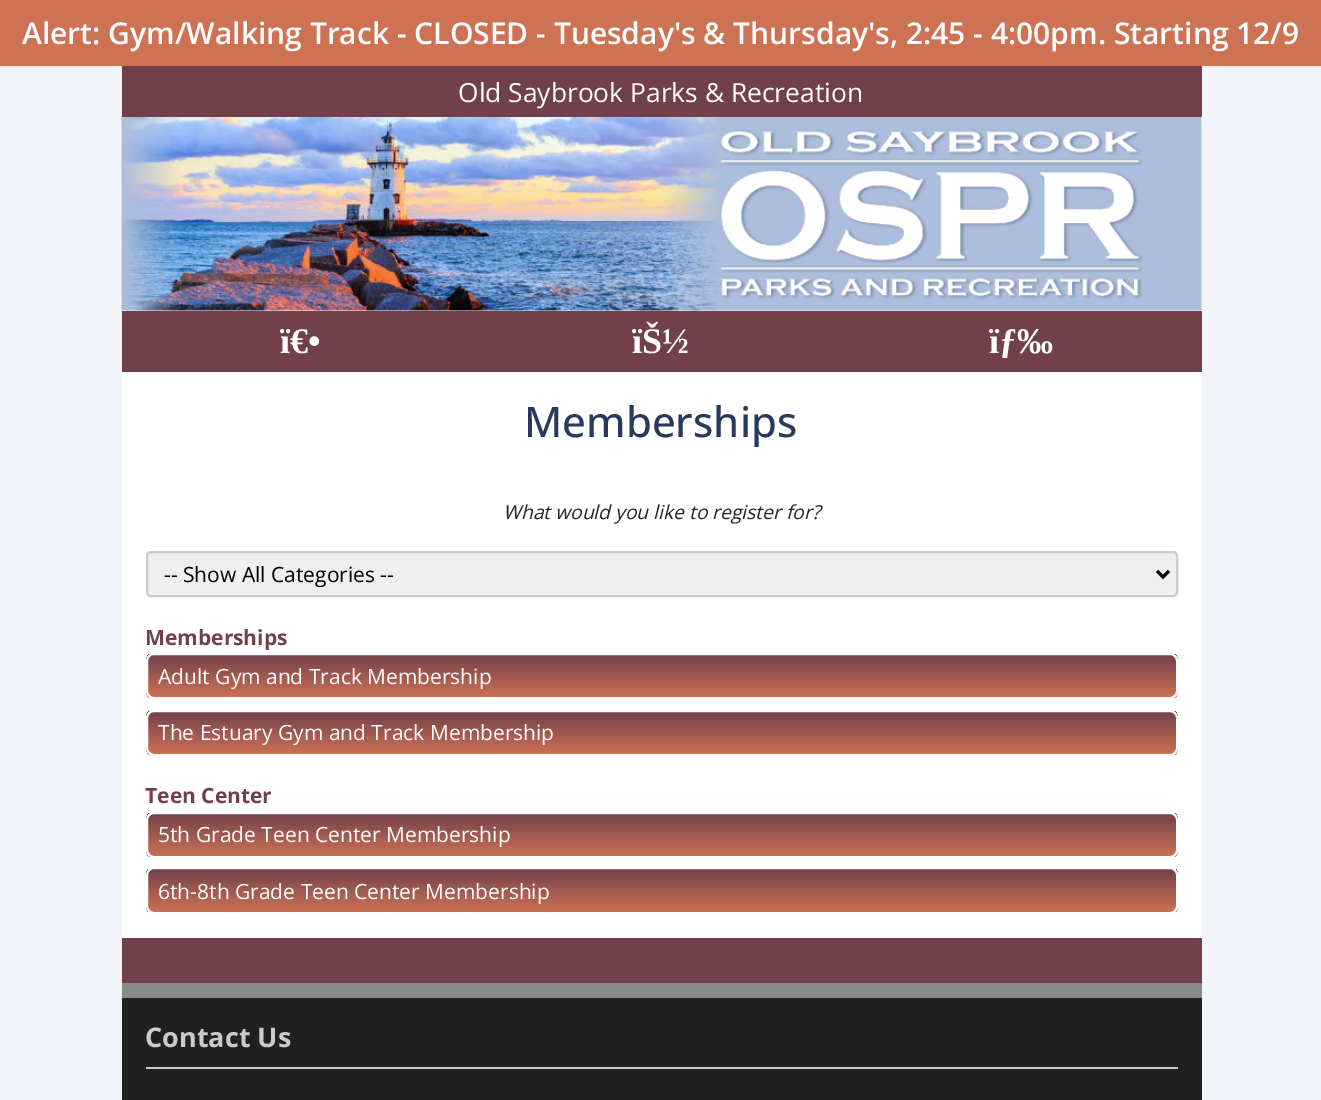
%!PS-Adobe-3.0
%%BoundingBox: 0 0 1321 1100
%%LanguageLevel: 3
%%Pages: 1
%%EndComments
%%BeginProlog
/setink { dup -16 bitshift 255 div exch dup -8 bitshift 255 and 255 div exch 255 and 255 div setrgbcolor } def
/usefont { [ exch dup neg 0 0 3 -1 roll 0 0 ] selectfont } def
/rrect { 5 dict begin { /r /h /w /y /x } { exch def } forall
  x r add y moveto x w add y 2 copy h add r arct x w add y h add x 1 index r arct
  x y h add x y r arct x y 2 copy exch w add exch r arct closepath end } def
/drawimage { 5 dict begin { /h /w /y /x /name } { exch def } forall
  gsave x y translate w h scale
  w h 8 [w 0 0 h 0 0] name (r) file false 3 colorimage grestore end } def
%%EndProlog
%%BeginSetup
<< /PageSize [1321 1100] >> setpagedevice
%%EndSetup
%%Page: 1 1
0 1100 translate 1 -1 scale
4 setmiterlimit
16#F1F4F9 setink
0 0 1321 1100 rectfill
16#CE7254 setink
0 0 1321 66 rectfill
/OpenSans-SemiBold 30 usefont
16#FFFFFF setink
22 44 moveto (Alert: Gym/Walking Track - CLOSED - Tuesday's & Thursday's, 2:45 - 4:00pm. Starting 12/9) show
122 117 1080 821 rectfill
16#72404B setink
122 66 1080 51 rectfill
/OpenSans-Regular 26.4 usefont
16#FFFFFF setink
458 102 moveto (Old Saybrook Parks & Recreation) show
(img1.raw) 121 117 1081 194 drawimage
16#72404B setink
122 311 1080 61 rectfill
/LiberationSerif-Bold 36 usefont
16#FFFFFF setink
[
    [(ï€•) 280 353]
    [(ïŠ½) 632 353]
    [(ïƒ‰) 989 353]
] { aload pop moveto show } forall
/OpenSans-Medium 42 usefont
16#283A5C setink
524 437 moveto (Memberships) show
/OpenSans-Italic 19.25 usefont
16#252525 setink
503 519 moveto (What would you like to register for?) show
16#EFEFEF setink
147 552 1030 44 4 rrect gsave fill grestore
16#CCCCCC setink
2 setlinewidth
stroke
16#000000 setink
3 setlinewidth
1157 571 moveto 1163 577 lineto 1169 571 lineto stroke
/OpenSans-Regular 21 usefont
164 582 moveto (-- Show All Categories --) show
/OpenSans-Bold 21 usefont
16#72404B setink
145 645 moveto (Memberships) show
gsave
146 653 1032 46 8 rrect clip newpath
gsave 146 654 moveto 1178 654 lineto 1178 698 lineto 146 698 lineto closepath clip newpath
<< /ShadingType 2 /ColorSpace /DeviceRGB /Coords [662 654 662 698] /Extend [true true] /Function << /FunctionType 2 /Domain [0 1] /C0 [0.447 0.251 0.294] /C1 [0.808 0.447 0.329] /N 1 >> >> shfill grestore
grestore
16#FFFFFF setink
2 setlinewidth
147 654 1030 44 7 rrect stroke
/OpenSans-Regular 21 usefont
158 684 moveto (Adult Gym and Track Membership) show
gsave
146 710 1032 46 8 rrect clip newpath
gsave 146 711 moveto 1178 711 lineto 1178 755 lineto 146 755 lineto closepath clip newpath
<< /ShadingType 2 /ColorSpace /DeviceRGB /Coords [662 711 662 755] /Extend [true true] /Function << /FunctionType 2 /Domain [0 1] /C0 [0.447 0.251 0.294] /C1 [0.808 0.447 0.329] /N 1 >> >> shfill grestore
grestore
147 711 1030 44 7 rrect stroke
158 740 moveto (The Estuary Gym and Track Membership) show
/OpenSans-Bold 21 usefont
16#72404B setink
145 803 moveto (Teen Center) show
gsave
146 812 1032 46 8 rrect clip newpath
gsave 146 813 moveto 1178 813 lineto 1178 857 lineto 146 857 lineto closepath clip newpath
<< /ShadingType 2 /ColorSpace /DeviceRGB /Coords [662 813 662 857] /Extend [true true] /Function << /FunctionType 2 /Domain [0 1] /C0 [0.447 0.251 0.294] /C1 [0.808 0.447 0.329] /N 1 >> >> shfill grestore
grestore
16#FFFFFF setink
147 813 1030 44 7 rrect stroke
/OpenSans-Regular 21 usefont
158 842 moveto (5th Grade Teen Center Membership) show
gsave
146 867 1032 47 8 rrect clip newpath
gsave 146 869 moveto 1178 869 lineto 1178 912 lineto 146 912 lineto closepath clip newpath
<< /ShadingType 2 /ColorSpace /DeviceRGB /Coords [662 869 662 912] /Extend [true true] /Function << /FunctionType 2 /Domain [0 1] /C0 [0.447 0.251 0.294] /C1 [0.808 0.447 0.329] /N 1 >> >> shfill grestore
grestore
147 868 1030 45 7 rrect stroke
158 899 moveto (6th-8th Grade Teen Center Membership) show
[
    [122 938 1080 45 16#72404B]
    [122 998 1080 102 16#202020]
    [122 983 1080 15 16#898989]
    [146 1067 1032 2 16#CBCBCB]
] { aload pop setink rectfill } forall
/OpenSans-Bold 27 usefont
145 1047 moveto (Contact Us) show
showpage
%%EOF
